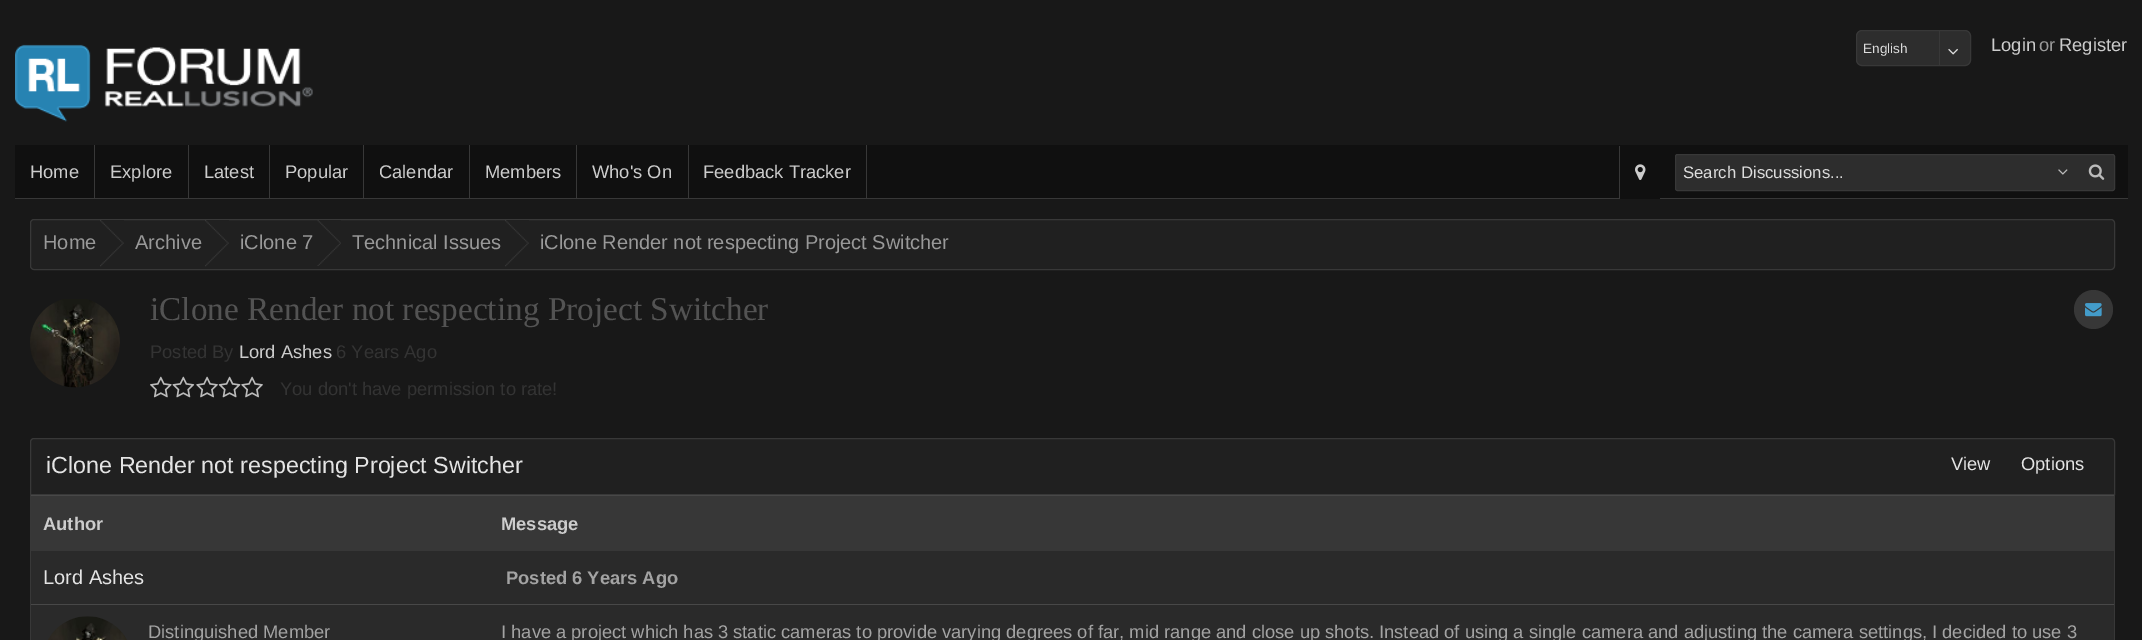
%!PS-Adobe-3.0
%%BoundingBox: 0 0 2142 640
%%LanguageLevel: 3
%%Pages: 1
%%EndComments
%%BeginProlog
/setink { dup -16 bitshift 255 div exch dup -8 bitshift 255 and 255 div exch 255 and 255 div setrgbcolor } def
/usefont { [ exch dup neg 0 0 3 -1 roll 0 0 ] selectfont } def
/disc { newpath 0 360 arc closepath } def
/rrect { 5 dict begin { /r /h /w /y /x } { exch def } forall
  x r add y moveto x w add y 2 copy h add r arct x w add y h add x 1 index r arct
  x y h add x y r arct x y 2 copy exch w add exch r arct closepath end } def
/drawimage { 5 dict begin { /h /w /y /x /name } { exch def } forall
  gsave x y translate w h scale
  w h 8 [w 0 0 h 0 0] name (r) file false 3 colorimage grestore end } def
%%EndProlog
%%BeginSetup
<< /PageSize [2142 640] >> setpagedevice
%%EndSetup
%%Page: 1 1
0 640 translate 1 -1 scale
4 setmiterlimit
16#181818 setink
0 0 2142 640 rectfill
(img1.raw) 15 44 298 78 drawimage
16#2D2D2D setink
1856.5 30.5 114 35 5.5 rrect gsave fill grestore
16#383838 setink
stroke
/LiberationSans-Regular 13.5 usefont
16#DDDDDD setink
1863 53 moveto (English) show
16#383838 setink
1939 31 1 34 rectfill
(img2.raw) 1948 48 10 7 drawimage
/LiberationSans-Regular 18.33 usefont
16#CCCCCC setink
1991 51 moveto (Login) show
16#999999 setink
2039 51 moveto (or) show
16#CCCCCC setink
2059 51 moveto (Register) show
[
    [15 145 2113 53 16#101010]
    [15 198 2113 1 16#383838]
    [94 145 1 53 16#383838]
] { aload pop setink rectfill } forall
16#CCCCCC setink
30 178 moveto (Home) show
16#383838 setink
188 145 1 53 rectfill
16#CCCCCC setink
110 178 moveto (Explore) show
16#383838 setink
269 145 1 53 rectfill
16#CCCCCC setink
204 178 moveto (Latest) show
16#383838 setink
363 145 1 53 rectfill
16#CCCCCC setink
285 178 moveto (Popular) show
16#383838 setink
469 145 1 53 rectfill
16#CCCCCC setink
379 178 moveto (Calendar) show
16#383838 setink
576 145 1 53 rectfill
16#CCCCCC setink
485 178 moveto (Members) show
16#383838 setink
688 145 1 53 rectfill
16#CCCCCC setink
592 178 moveto (Who's On) show
16#383838 setink
866 145 1 53 rectfill
16#CCCCCC setink
703 178 moveto (Feedback Tracker) show
16#101010 setink
1620 198 40 1 rectfill
16#383838 setink
1619 146 1 53 rectfill
(img3.raw) 1635 164 11 16 drawimage
16#2D2D2D setink
1675.5 154.5 439 36 2 rrect gsave fill grestore
16#383838 setink
stroke
/LiberationSans-Regular 16.75 usefont
16#DDDDDD setink
1683 178 moveto (Search Discussions...) show
(img4.raw) 2058 169 10 6 drawimage
(img5.raw) 2088 164 17 16 drawimage
16#202020 setink
30.5 219.5 2084 50 3.5 rrect gsave fill grestore
16#383838 setink
stroke
/LiberationSans-Regular 20 usefont
16#999999 setink
43 249 moveto (Home) show
(img6.raw) 100 220 24 47 drawimage
135 249 moveto (Archive) show
(img6.raw) 205 220 24 47 drawimage
240 249 moveto (iClone 7) show
(img7.raw) 317 220 24 46 drawimage
352 249 moveto (Technical Issues) show
(img8.raw) 505 220 24 47 drawimage
540 249 moveto (iClone Render not respecting Project Switcher) show
(img9.raw) 30 299 90 89 drawimage
/LiberationSerif-Regular 33.3 usefont
16#535353 setink
150 320 moveto (iClone Render not respecting Project Switcher) show
/LiberationSans-Regular 18.33 usefont
16#333333 setink
150 358 moveto (Posted By) show
16#CCCCCC setink
239 358 moveto (Lord Ashes) show
16#333333 setink
336 358 moveto (6 Years Ago) show
(img10.raw) 150 376 22 22 drawimage
(img11.raw) 172 376 23 22 drawimage
(img12.raw) 196 376 22 22 drawimage
(img13.raw) 218 376 23 22 drawimage
(img12.raw) 241 376 22 22 drawimage
280 395 moveto (You don't have permission to rate!) show
16#373737 setink
2093.5 309.5 19.5 disc fill
(img14.raw) 2085 303 17 14 drawimage
16#202020 setink
34 438.5 moveto 2111 438.5 lineto 2113 438.5 2114.5 440 2114.5 442 curveto 2114.5 494.5 lineto 30.5 494.5 lineto 30.5 442 lineto 30.5 440 32 438.5 34 438.5 curveto closepath gsave fill grestore
16#383838 setink
stroke
/LiberationSans-Regular 23.3 usefont
16#E4E4E4 setink
46 473 moveto (iClone Render not respecting Project Switcher) show
/LiberationSans-Regular 18.33 usefont
1951 470 moveto (View) show
2021 470 moveto (Options) show
[
    [2114 495 1 145 16#383838]
    [30 495 1 145 16#383838]
    [31 496 2083 55 16#373737]
    [31 495 2083 1 16#484848]
] { aload pop setink rectfill } forall
/LiberationSans-Bold 18.33 usefont
16#CCCCCC setink
43 530 moveto (Author) show
501 530 moveto (Message) show
16#2A2A2A setink
31 551 2083 53 rectfill
/LiberationSans-Regular 20 usefont
16#E4E4E4 setink
43 584 moveto (Lord Ashes) show
/LiberationSans-Bold 18.33 usefont
16#A3A3A3 setink
506 584 moveto (Posted 6 Years Ago) show
16#2A2A2A setink
31 605 2083 35 rectfill
16#484848 setink
31 604 2083 1 rectfill
(img15.raw) 48 616 79 24 drawimage
/LiberationSans-Regular 18.33 usefont
16#A3A3A3 setink
148 638 moveto (Distinguished Member) show
501 638 moveto (I have a project which has 3 static cameras to provide varying degrees of far, mid range and close up shots. Instead of using a single camera and adjusting the camera settings, I decided to use 3) show
showpage
%%EOF
